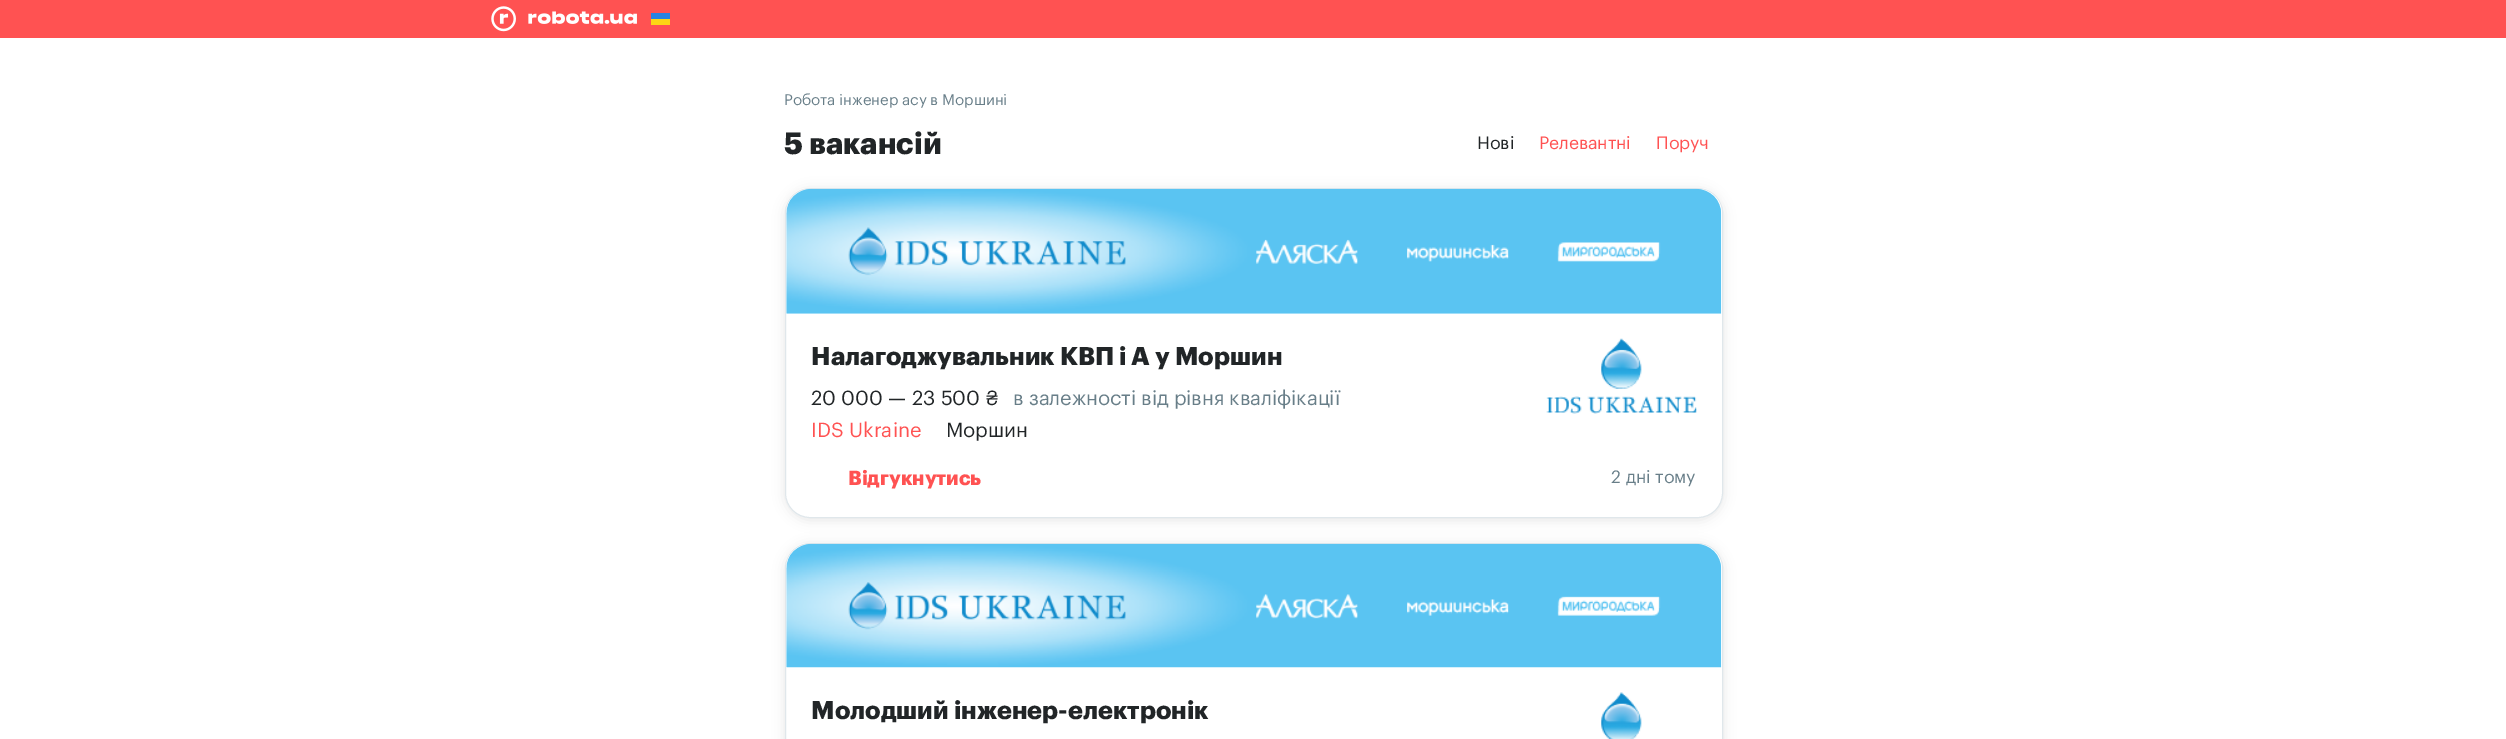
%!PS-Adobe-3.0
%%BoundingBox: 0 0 2506 739
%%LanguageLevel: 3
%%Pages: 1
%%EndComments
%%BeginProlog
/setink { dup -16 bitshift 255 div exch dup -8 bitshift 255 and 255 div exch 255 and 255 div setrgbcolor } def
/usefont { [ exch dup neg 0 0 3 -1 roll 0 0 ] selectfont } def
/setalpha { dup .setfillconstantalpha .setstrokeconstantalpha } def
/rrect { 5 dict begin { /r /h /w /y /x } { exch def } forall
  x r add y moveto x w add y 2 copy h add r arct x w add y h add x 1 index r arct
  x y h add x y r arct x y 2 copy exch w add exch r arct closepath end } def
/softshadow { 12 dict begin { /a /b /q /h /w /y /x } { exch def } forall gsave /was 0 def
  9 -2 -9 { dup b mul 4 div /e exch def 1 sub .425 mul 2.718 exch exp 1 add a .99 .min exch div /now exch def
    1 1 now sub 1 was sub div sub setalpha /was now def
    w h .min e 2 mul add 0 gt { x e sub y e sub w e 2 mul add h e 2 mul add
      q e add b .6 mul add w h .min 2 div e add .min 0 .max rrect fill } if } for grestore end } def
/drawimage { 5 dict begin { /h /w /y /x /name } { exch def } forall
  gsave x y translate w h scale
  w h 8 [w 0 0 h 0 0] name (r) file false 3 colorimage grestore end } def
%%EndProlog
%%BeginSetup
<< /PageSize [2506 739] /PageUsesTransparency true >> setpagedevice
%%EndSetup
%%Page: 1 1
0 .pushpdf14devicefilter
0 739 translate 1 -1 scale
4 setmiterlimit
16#FFFFFF setink
0 0 2506 739 rectfill
16#FF5252 setink
0 0 2506 38 rectfill
(img1.raw) 491 6 146 26 drawimage
16#2983E1 setink
651 13 19 6 rectfill
16#FDD615 setink
651 19 19 6 rectfill
/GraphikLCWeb-Regular 15 usefont
16#687E88 setink
784 105 moveto (Робота інженер асу в Моршині) show
/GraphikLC-Bold 30 usefont
16#212527 setink
784 154 moveto (5 вакансій) show
/GraphikLCWeb-Regular 17.5 usefont
1477 149 moveto (Нові) show
16#FF5252 setink
1539 149 moveto (Релевантні) show
1656 149 moveto (Поруч) show
16#050506 setink
785 190 938 330 25 6 0.1 softshadow
16#FFFFFF setink
785.5 188.5 937 329 24.5 rrect gsave fill grestore
16#E0E7EB setink
stroke
(img2.raw) 786 188 936 126 drawimage
/GraphikLC-Bold 25 usefont
16#212527 setink
811 365 moveto (Налагоджувальник КВП і А у Моршин) show
/GraphikLCWeb-Regular 20 usefont
811 405 moveto (20 000 — 23 500 ₴) show
16#687E88 setink
1013 405 moveto (в залежності від рівня кваліфікації) show
16#FF5252 setink
811 437 moveto (IDS Ukraine) show
16#212527 setink
946 437 moveto (Моршин) show
(img3.raw) 1546 338 151 76 drawimage
/GraphikLC-Bold 20 usefont
16#FF5252 setink
848 485 moveto (Відгукнутись) show
/GraphikLCWeb-Regular 17.5 usefont
16#687E88 setink
1611 483 moveto (2 дні тому) show
16#050506 setink
785 545 938 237 25 6 0.1 softshadow
16#FFFFFF setink
785.5 543.5 937 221 24.5 rrect gsave fill grestore
16#E0E7EB setink
stroke
(img4.raw) 786 543 936 125 drawimage
/GraphikLC-Bold 25 usefont
16#212527 setink
811 719 moveto (Молодший інженер-електронік) show
(img5.raw) 1601 692 41 47 drawimage
.poppdf14devicefilter showpage
%%EOF
